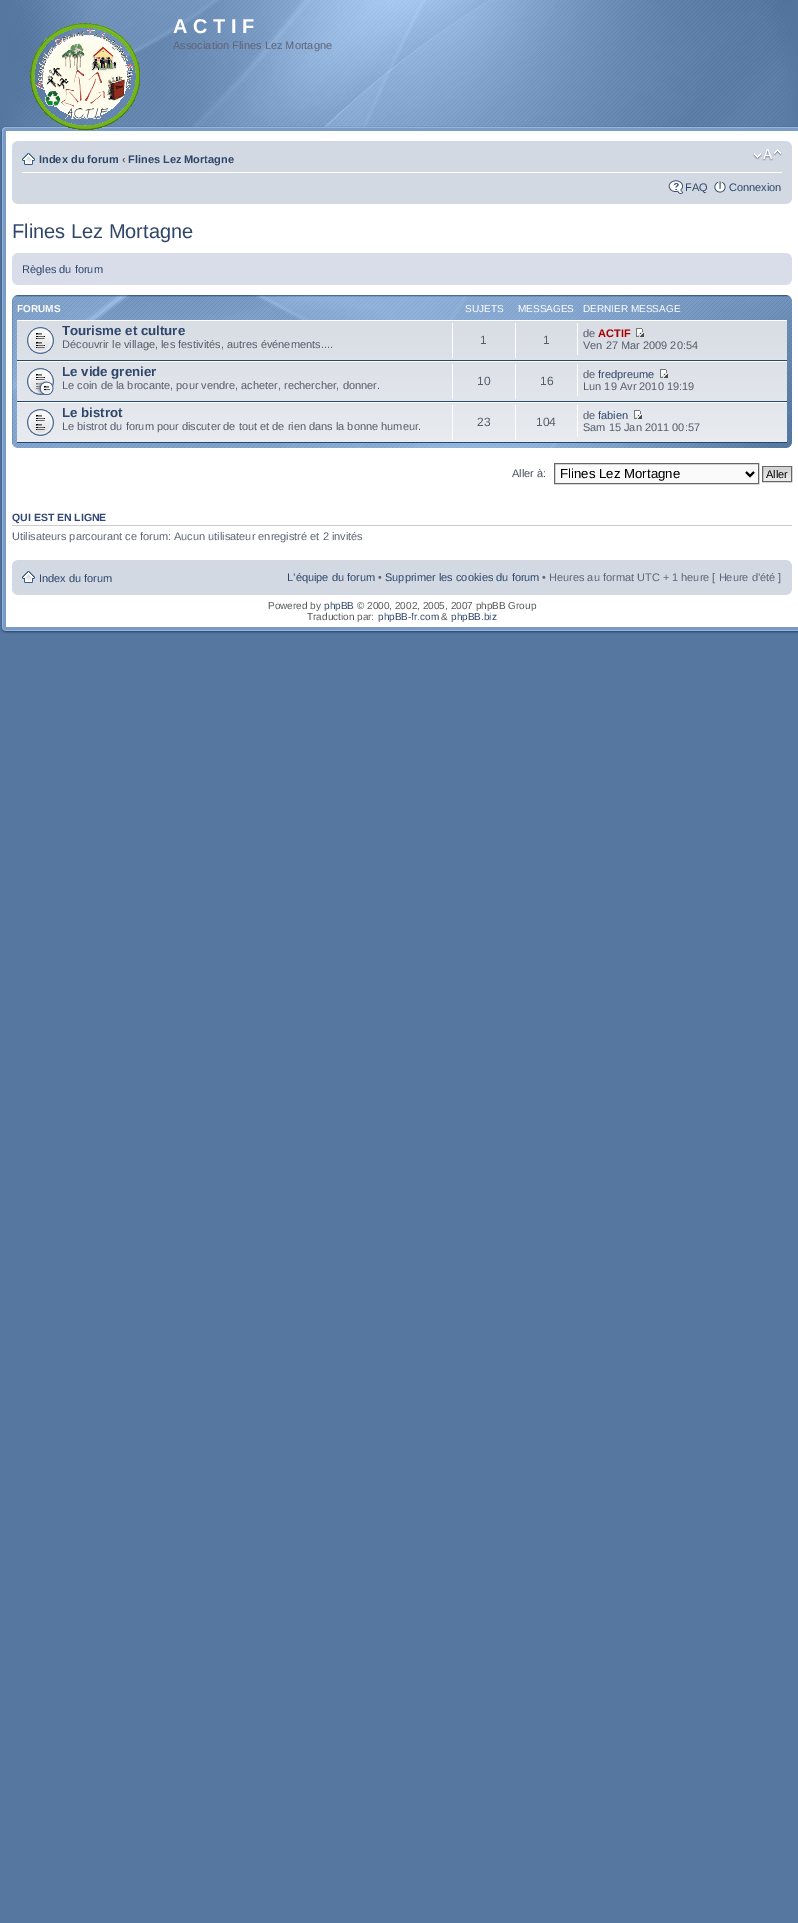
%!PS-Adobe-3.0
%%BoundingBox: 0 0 798 1923
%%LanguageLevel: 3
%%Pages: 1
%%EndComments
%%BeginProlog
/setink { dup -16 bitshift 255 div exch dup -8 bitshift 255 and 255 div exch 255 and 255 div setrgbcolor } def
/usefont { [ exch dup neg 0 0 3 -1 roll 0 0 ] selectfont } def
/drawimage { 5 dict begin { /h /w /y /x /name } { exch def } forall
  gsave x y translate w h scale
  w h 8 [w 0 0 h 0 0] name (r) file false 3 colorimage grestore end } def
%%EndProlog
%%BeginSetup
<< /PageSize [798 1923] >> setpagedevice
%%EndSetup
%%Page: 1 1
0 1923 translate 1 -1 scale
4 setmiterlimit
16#5677A0 setink
0 0 798 1923 rectfill
(img1.raw) 0 0 798 141 drawimage
(img2.raw) 30 23 110 107 drawimage
/LiberationSans-Bold 20 usefont
16#FFFFFF setink
173 33 moveto (A C T I F) show
/LiberationSans-Regular 11 usefont
16#5F6476 setink
173 49 moveto (Association Flines Lez Mortagne) show
(img3.raw) 0 141 798 486 drawimage
16#D2D9E3 setink
12 141 780 63 rectfill
(img4.raw) 12 141 5 5 drawimage
(img5.raw) 787 141 5 5 drawimage
16#FFFFFF setink
22 172 760 1 rectfill
(img6.raw) 22 153 13 12 drawimage
/LiberationSans-Bold 11 usefont
16#2F466A setink
39 163 moveto (Index du forum) show
16#5F6476 setink
122 163 moveto (‹) show
16#2F466A setink
128 163 moveto (Flines Lez Mortagne) show
(img7.raw) 753 149 29 12 drawimage
(img8.raw) 668 180 16 14 drawimage
/LiberationSans-Regular 11 usefont
685 191 moveto (FAQ) show
(img9.raw) 714 181 12 12 drawimage
729 191 moveto (Connexion) show
(img10.raw) 12 199 5 5 drawimage
(img11.raw) 787 199 5 5 drawimage
/LiberationSans-Regular 20 usefont
12 238 moveto (Flines Lez Mortagne) show
16#D8DDE9 setink
12 253 780 32 rectfill
(img12.raw) 12 253 5 5 drawimage
(img13.raw) 787 253 5 5 drawimage
/LiberationSans-Regular 11 usefont
16#2F466A setink
22 273 moveto (Règles du forum) show
(img14.raw) 12 280 5 5 drawimage
(img15.raw) 787 280 5 5 drawimage
(img16.raw) 12 295 780 153 drawimage
(img17.raw) 12 295 6 5 drawimage
(img18.raw) 786 295 6 5 drawimage
/LiberationSans-Bold 10 usefont
16#FFFFFF setink
17 312 moveto (FORUMS) show
/LiberationSans-Regular 10 usefont
[
    [(SUJETS) 465 312]
    [(MESSAGES) 518 312]
    [(DERNIER MESSAGE) 583 312]
] { aload pop moveto show } forall
(img19.raw) 17 321 770 121 drawimage
17 320 770 1 rectfill
16#24496B setink
17 360 770 1 rectfill
(img20.raw) 27 327 27 27 drawimage
/LiberationSans-Bold 13.25 usefont
16#2F466A setink
62 335 moveto (Tourisme et culture) show
/LiberationSans-Regular 11 usefont
16#575C6C setink
62 348 moveto (Découvrir le village, les festivités, autres événements....) show
16#FFFFFF setink
452 323 1 35 rectfill
/LiberationSans-Regular 12 usefont
16#575C6C setink
480 344 moveto (1) show
16#FFFFFF setink
515 323 1 35 rectfill
16#575C6C setink
543 344 moveto (1) show
16#FFFFFF setink
577 323 1 32 rectfill
/LiberationSans-Regular 11 usefont
16#575C6C setink
583 337 moveto (de) show
/LiberationSans-Bold 11 usefont
16#AA0000 setink
598 337 moveto (ACTIF) show
(img21.raw) 636 328 8 9 drawimage
/LiberationSans-Regular 11 usefont
16#575C6C setink
583 349 moveto (Ven 27 Mar 2009 20:54) show
16#FFFFFF setink
17 361 770 1 rectfill
16#24496B setink
17 401 770 1 rectfill
(img22.raw) 27 368 27 27 drawimage
/LiberationSans-Bold 13.25 usefont
16#2F466A setink
62 376 moveto (Le vide grenier) show
/LiberationSans-Regular 11 usefont
16#575C6C setink
62 389 moveto (Le coin de la brocante, pour vendre, acheter, rechercher, donner.) show
16#FFFFFF setink
452 364 1 35 rectfill
/LiberationSans-Regular 12 usefont
16#575C6C setink
477 385 moveto (10) show
16#FFFFFF setink
515 364 1 35 rectfill
16#575C6C setink
540 385 moveto (16) show
16#FFFFFF setink
577 364 1 32 rectfill
/LiberationSans-Regular 11 usefont
16#575C6C setink
583 378 moveto (de) show
16#2F466A setink
598 378 moveto (fredpreume) show
(img23.raw) 660 369 8 9 drawimage
16#575C6C setink
583 390 moveto (Lun 19 Avr 2010 19:19) show
16#FFFFFF setink
17 402 770 1 rectfill
16#24496B setink
17 442 770 1 rectfill
(img24.raw) 27 409 27 27 drawimage
/LiberationSans-Bold 13.25 usefont
16#2F466A setink
62 417 moveto (Le bistrot) show
/LiberationSans-Regular 11 usefont
16#575C6C setink
62 430 moveto (Le bistrot du forum pour discuter de tout et de rien dans la bonne humeur.) show
16#FFFFFF setink
452 405 1 35 rectfill
/LiberationSans-Regular 12 usefont
16#575C6C setink
477 426 moveto (23) show
16#FFFFFF setink
515 405 1 35 rectfill
16#575C6C setink
536 426 moveto (104) show
16#FFFFFF setink
577 405 1 32 rectfill
/LiberationSans-Regular 11 usefont
16#575C6C setink
583 419 moveto (de) show
16#2F466A setink
598 419 moveto (fabien) show
(img25.raw) 634 410 8 9 drawimage
16#575C6C setink
583 431 moveto (Sam 15 Jan 2011 00:57) show
(img26.raw) 12 443 5 5 drawimage
(img27.raw) 787 443 5 5 drawimage
16#4B505E setink
512 477 moveto (Aller à:) show
16#FAFAFA setink
554.5 463.5 moveto 758.5 463.5 lineto 758.5 483.5 lineto 554.5 483.5 lineto closepath gsave fill grestore
16#666666 setink
stroke
16#000000 setink
2 setlinewidth
746 472 moveto 750 476 lineto 754 472 lineto stroke
/LiberationSans-Regular 13.25 usefont
560 478 moveto (Flines Lez Mortagne) show
(img28.raw) 763 467 28 14 drawimage
16#666666 setink
1 setlinewidth
762.5 466.5 29 15 rectstroke
/LiberationSans-Regular 11 usefont
16#000000 setink
766 478 moveto (Aller) show
16#CCCCCC setink
12 525 780 1 rectfill
/LiberationSans-Bold 10.5 usefont
16#334876 setink
12 521 moveto (QUI EST EN LIGNE) show
/LiberationSans-Regular 11 usefont
16#5F6476 setink
12 540 moveto (Utilisateurs parcourant ce forum: Aucun utilisateur enregistré et 2 invités) show
16#D2D9E3 setink
12 560 780 35 rectfill
(img4.raw) 12 560 5 5 drawimage
(img5.raw) 787 560 5 5 drawimage
(img6.raw) 22 571 13 12 drawimage
16#2F466A setink
39 582 moveto (Index du forum) show
287 581 moveto (L’équipe du forum) show
16#5F6476 setink
378 581 moveto (•) show
16#2F466A setink
385 581 moveto (Supprimer les cookies du forum) show
16#5F6476 setink
542 581 moveto (• Heures au format UTC + 1 heure [ Heure d’été ]) show
(img10.raw) 12 590 5 5 drawimage
(img11.raw) 787 590 5 5 drawimage
/LiberationSans-Regular 10 usefont
16#555555 setink
268 609 moveto (Powered by) show
16#2F466A setink
324 609 moveto (phpBB) show
16#555555 setink
357 609 moveto (© 2000, 2002, 2005, 2007 phpBB Group) show
307 620 moveto (Traduction par:) show
16#2F466A setink
378 620 moveto (phpBB-fr.com) show
16#555555 setink
441 620 moveto (&) show
16#2F466A setink
451 620 moveto (phpBB.biz) show
(img29.raw) 0 627 798 7 drawimage
showpage
%%EOF
